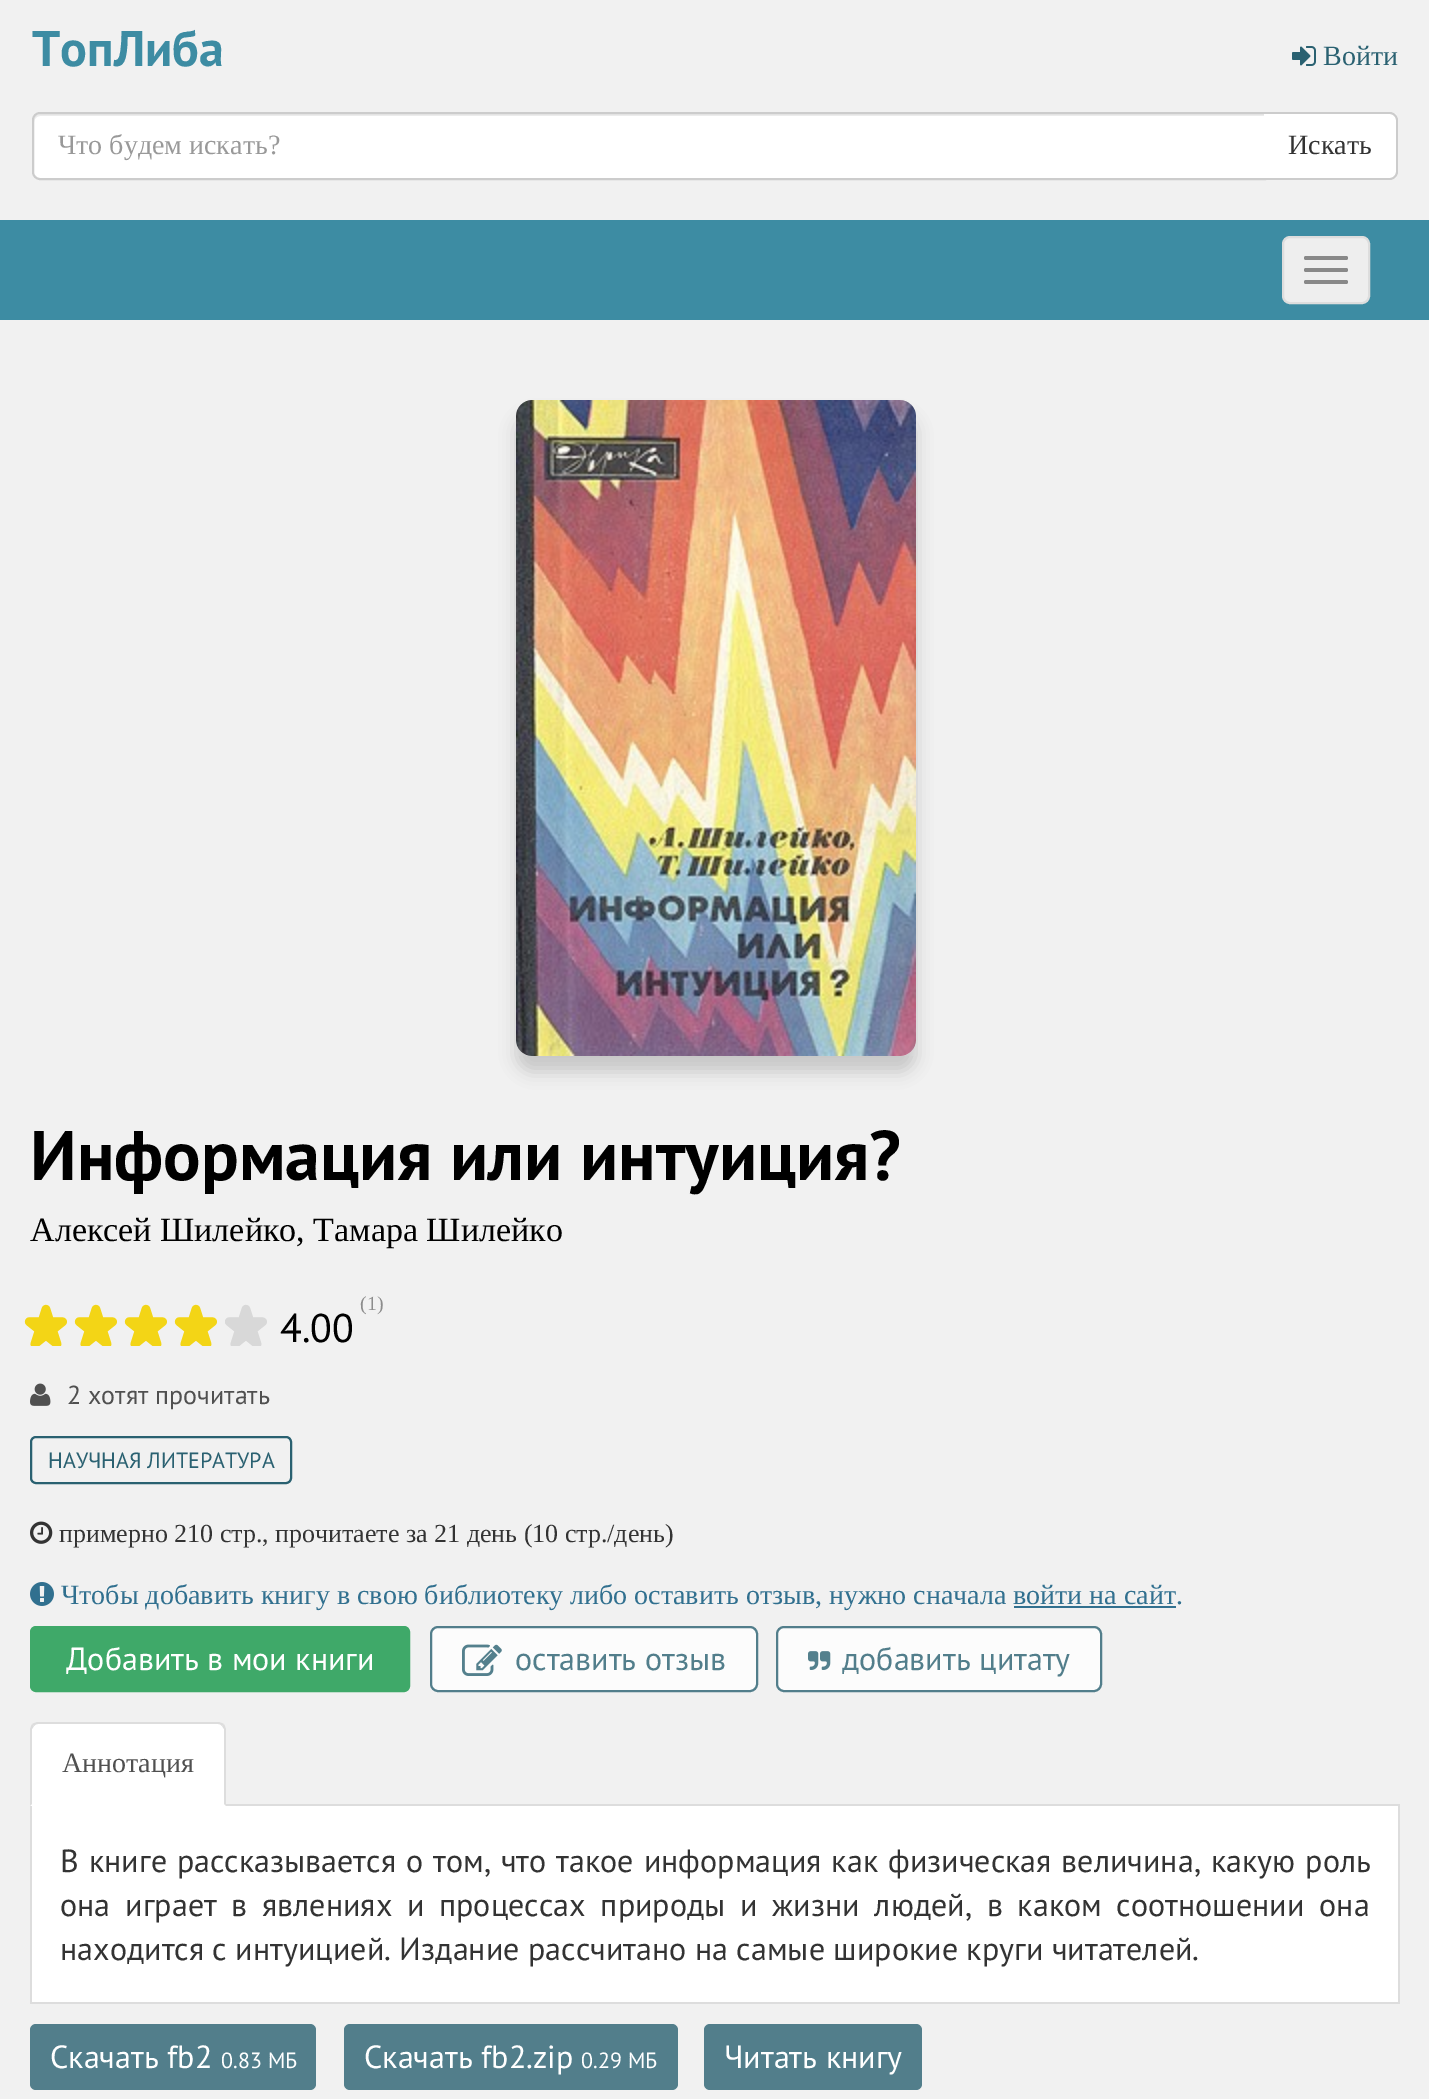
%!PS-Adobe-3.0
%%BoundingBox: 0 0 1429 2099
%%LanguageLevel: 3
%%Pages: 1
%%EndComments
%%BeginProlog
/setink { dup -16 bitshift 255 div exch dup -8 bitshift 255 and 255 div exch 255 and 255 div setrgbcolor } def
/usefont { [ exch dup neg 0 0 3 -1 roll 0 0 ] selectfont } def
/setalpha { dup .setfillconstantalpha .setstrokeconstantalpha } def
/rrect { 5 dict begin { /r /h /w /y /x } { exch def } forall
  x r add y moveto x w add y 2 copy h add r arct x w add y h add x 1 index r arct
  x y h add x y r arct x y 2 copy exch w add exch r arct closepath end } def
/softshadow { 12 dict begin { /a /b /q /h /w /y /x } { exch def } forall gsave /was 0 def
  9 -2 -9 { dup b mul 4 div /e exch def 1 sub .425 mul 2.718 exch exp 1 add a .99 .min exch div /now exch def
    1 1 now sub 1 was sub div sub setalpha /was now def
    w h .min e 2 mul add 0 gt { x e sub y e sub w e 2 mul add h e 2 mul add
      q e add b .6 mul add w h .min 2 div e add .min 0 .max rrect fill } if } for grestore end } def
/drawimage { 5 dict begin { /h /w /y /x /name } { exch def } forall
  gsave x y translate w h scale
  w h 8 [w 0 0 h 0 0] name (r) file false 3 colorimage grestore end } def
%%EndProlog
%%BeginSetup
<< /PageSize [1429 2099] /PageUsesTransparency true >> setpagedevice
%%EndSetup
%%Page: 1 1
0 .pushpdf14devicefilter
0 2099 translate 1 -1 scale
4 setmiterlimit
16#F1F1F1 setink
0 0 1429 2099 rectfill
/PTSans-Bold 50 usefont
16#3D8CA3 setink
32 66 moveto (ТопЛиба) show
(img1.raw) 1292 46 24 20 drawimage
/LiberationSerif-Regular 28 usefont
16#2A6171 setink
1323 65 moveto (Войти) show
16#FFFFFF setink
40 112 moveto 1266 112 lineto 1266 180 lineto 40 180 lineto 35.5 180 32 176.5 32 172 curveto 32 120 lineto 32 115.5 35.5 112 40 112 curveto closepath fill
16#ECECEC setink
40 116 moveto 1264 116 lineto 1264 114 lineto 40 114 lineto 37 114 34 117 34 120 curveto 34 122 lineto 34 119 37 116 40 116 curveto closepath fill
16#CCCCCC setink
2 setlinewidth
40 113 moveto 1265 113 lineto 1265 179 lineto 40 179 lineto 36 179 33 176 33 172 curveto 33 120 lineto 33 116 36 113 40 113 curveto closepath stroke
16#999999 setink
58 154 moveto (Что будем искать?) show
16#FFFFFF setink
1264 112 moveto 1390 112 lineto 1394.5 112 1398 115.5 1398 120 curveto 1398 172 lineto 1398 176.5 1394.5 180 1390 180 curveto 1264 180 lineto closepath fill
16#CCCCCC setink
1264 112 moveto 1390 112 lineto 1394 112 1398 116 1398 120 curveto 1398 172 lineto 1398 176 1394 180 1390 180 curveto 1264 180 lineto closepath 1264 114 moveto 1390 114 lineto 1393 114 1396 117 1396 120 curveto 1396 172 lineto 1396 175 1393 178 1390 178 curveto 1264 178 lineto closepath eofill
16#333333 setink
1288 154 moveto (Искать) show
16#3D8CA3 setink
0 220 1429 100 rectfill
16#EEEEEE setink
1283 237 86 66 7 rrect gsave fill grestore
16#DDDDDD setink
stroke
16#888888 setink
1304 256 44 4 2 rrect fill
1304 268 44 4 2 rrect fill
1304 280 44 4 2 rrect fill
16#252628 setink
516 416 400 656 16 8 0.2 softshadow
(img2.raw) 516 400 400 656 drawimage
/PTSans-Bold 70 usefont
16#000000 setink
30 1180 moveto (Информация или интуиция?) show
/LiberationSerif-Regular 34 usefont
30 1241 moveto (Алексей Шилейко, Тамара Шилейко) show
/LiberationSerif-Regular 20 usefont
16#8C8C8C setink
360 1310 moveto (\(1\)) show
(img3.raw) 24 1304 43 42 drawimage
(img3.raw) 74 1304 43 42 drawimage
(img3.raw) 124 1304 43 42 drawimage
(img3.raw) 174 1304 43 42 drawimage
(img4.raw) 225 1304 42 42 drawimage
/PTSans-Regular 40 usefont
16#000000 setink
280 1342 moveto (4.00) show
(img5.raw) 30 1383 21 23 drawimage
/PTSans-Regular 26 usefont
16#505050 setink
67 1404 moveto (2 хотят прочитать) show
16#2A6171 setink
31 1437 260 46 5 rrect stroke
/PTSans-Regular 22 usefont
48 1468 moveto (НАУЧНАЯ ЛИТЕРАТУРА) show
(img6.raw) 30 1521 23 23 drawimage
/LiberationSerif-Regular 26 usefont
16#333333 setink
59 1542 moveto (примерно 210 стр., прочитаете за 21 день \(10 стр./день\)) show
(img7.raw) 30 1582 24 24 drawimage
/LiberationSerif-Regular 28 usefont
16#31708F setink
61 1604 moveto (Чтобы добавить книгу в свою библиотеку либо оставить отзыв, нужно сначала войти на сайт.) show
1014 1606 162 2 rectfill
16#3FA969 setink
33 1629 374 60 3 rrect gsave fill grestore
6 setlinewidth
stroke
/PTSans-Regular 32 usefont
16#FFFFFF setink
66 1670 moveto (Добавить в мои книги) show
16#FCFCFC setink
431 1627 326 64 7 rrect gsave fill grestore
16#527E8B setink
2 setlinewidth
stroke
(img8.raw) 462 1644 40 32 drawimage
515 1670 moveto (оставить отзыв) show
16#FCFCFC setink
777 1627 324 64 7 rrect gsave fill grestore
16#527E8B setink
stroke
(img9.raw) 808 1651 23 19 drawimage
842 1670 moveto (добавить цитату) show
16#DDDDDD setink
226 1804 1174 2 rectfill
16#FFFFFF setink
38 1722 moveto 218 1722 lineto 222.5 1722 226 1725.5 226 1730 curveto 226 1806 lineto 30 1806 lineto 30 1730 lineto 30 1725.5 33.5 1722 38 1722 curveto closepath fill
16#DDDDDD setink
38 1722 moveto 36 1722 34 1723 32 1724 curveto 34 1726 lineto 35 1725 36 1724 38 1724 curveto 218 1724 lineto 220 1724 221 1725 222 1726 curveto 224 1724 lineto 222 1723 220 1722 218 1722 curveto closepath fill
226 1806 moveto 226 1730 lineto 226 1728 225 1726 224 1724 curveto 222 1726 lineto 224 1729 lineto 224 1804 lineto closepath fill
30 1806 moveto 32 1804 lineto 32 1729 lineto 34 1726 lineto 32 1724 lineto 31 1726 30 1728 30 1730 curveto closepath fill
/LiberationSerif-Regular 28 usefont
16#505050 setink
62 1772 moveto (Аннотация) show
[
    [32 1806 1366 196 16#FFFFFF]
    [1398 1806 2 198 16#DDDDDD]
    [30 2002 1370 2 16#DDDDDD]
    [30 1806 2 198 16#DDDDDD]
] { aload pop setink rectfill } forall
/PTSans-Regular 32 usefont
16#333333 setink
60 1872 moveto 1.5 0 32 (В книге рассказывается о том, что такое информация как физическая величина, какую роль) widthshow
60 1916 moveto 6.25 0 32 (она играет в явлениях и процессах природы и жизни людей, в каком соотношении она) widthshow
60 1960 moveto (находится с интуицией. Издание рассчитано на самые широкие круги читателей.) show
16#527E8B setink
30 2024 286 66 6 rrect fill
16#FFFFFF setink
50 2068 moveto (Скачать fb2) show
/PTSans-Regular 22 usefont
221 2068 moveto (0.83 МБ) show
16#527E8B setink
344 2024 334 66 6 rrect fill
/PTSans-Regular 32 usefont
16#FFFFFF setink
364 2068 moveto (Скачать fb2.zip) show
/PTSans-Regular 22 usefont
581 2068 moveto (0.29 МБ) show
16#527E8B setink
704 2024 218 66 6 rrect fill
/PTSans-Regular 32 usefont
16#FFFFFF setink
724 2068 moveto (Читать книгу) show
.poppdf14devicefilter showpage
%%EOF
